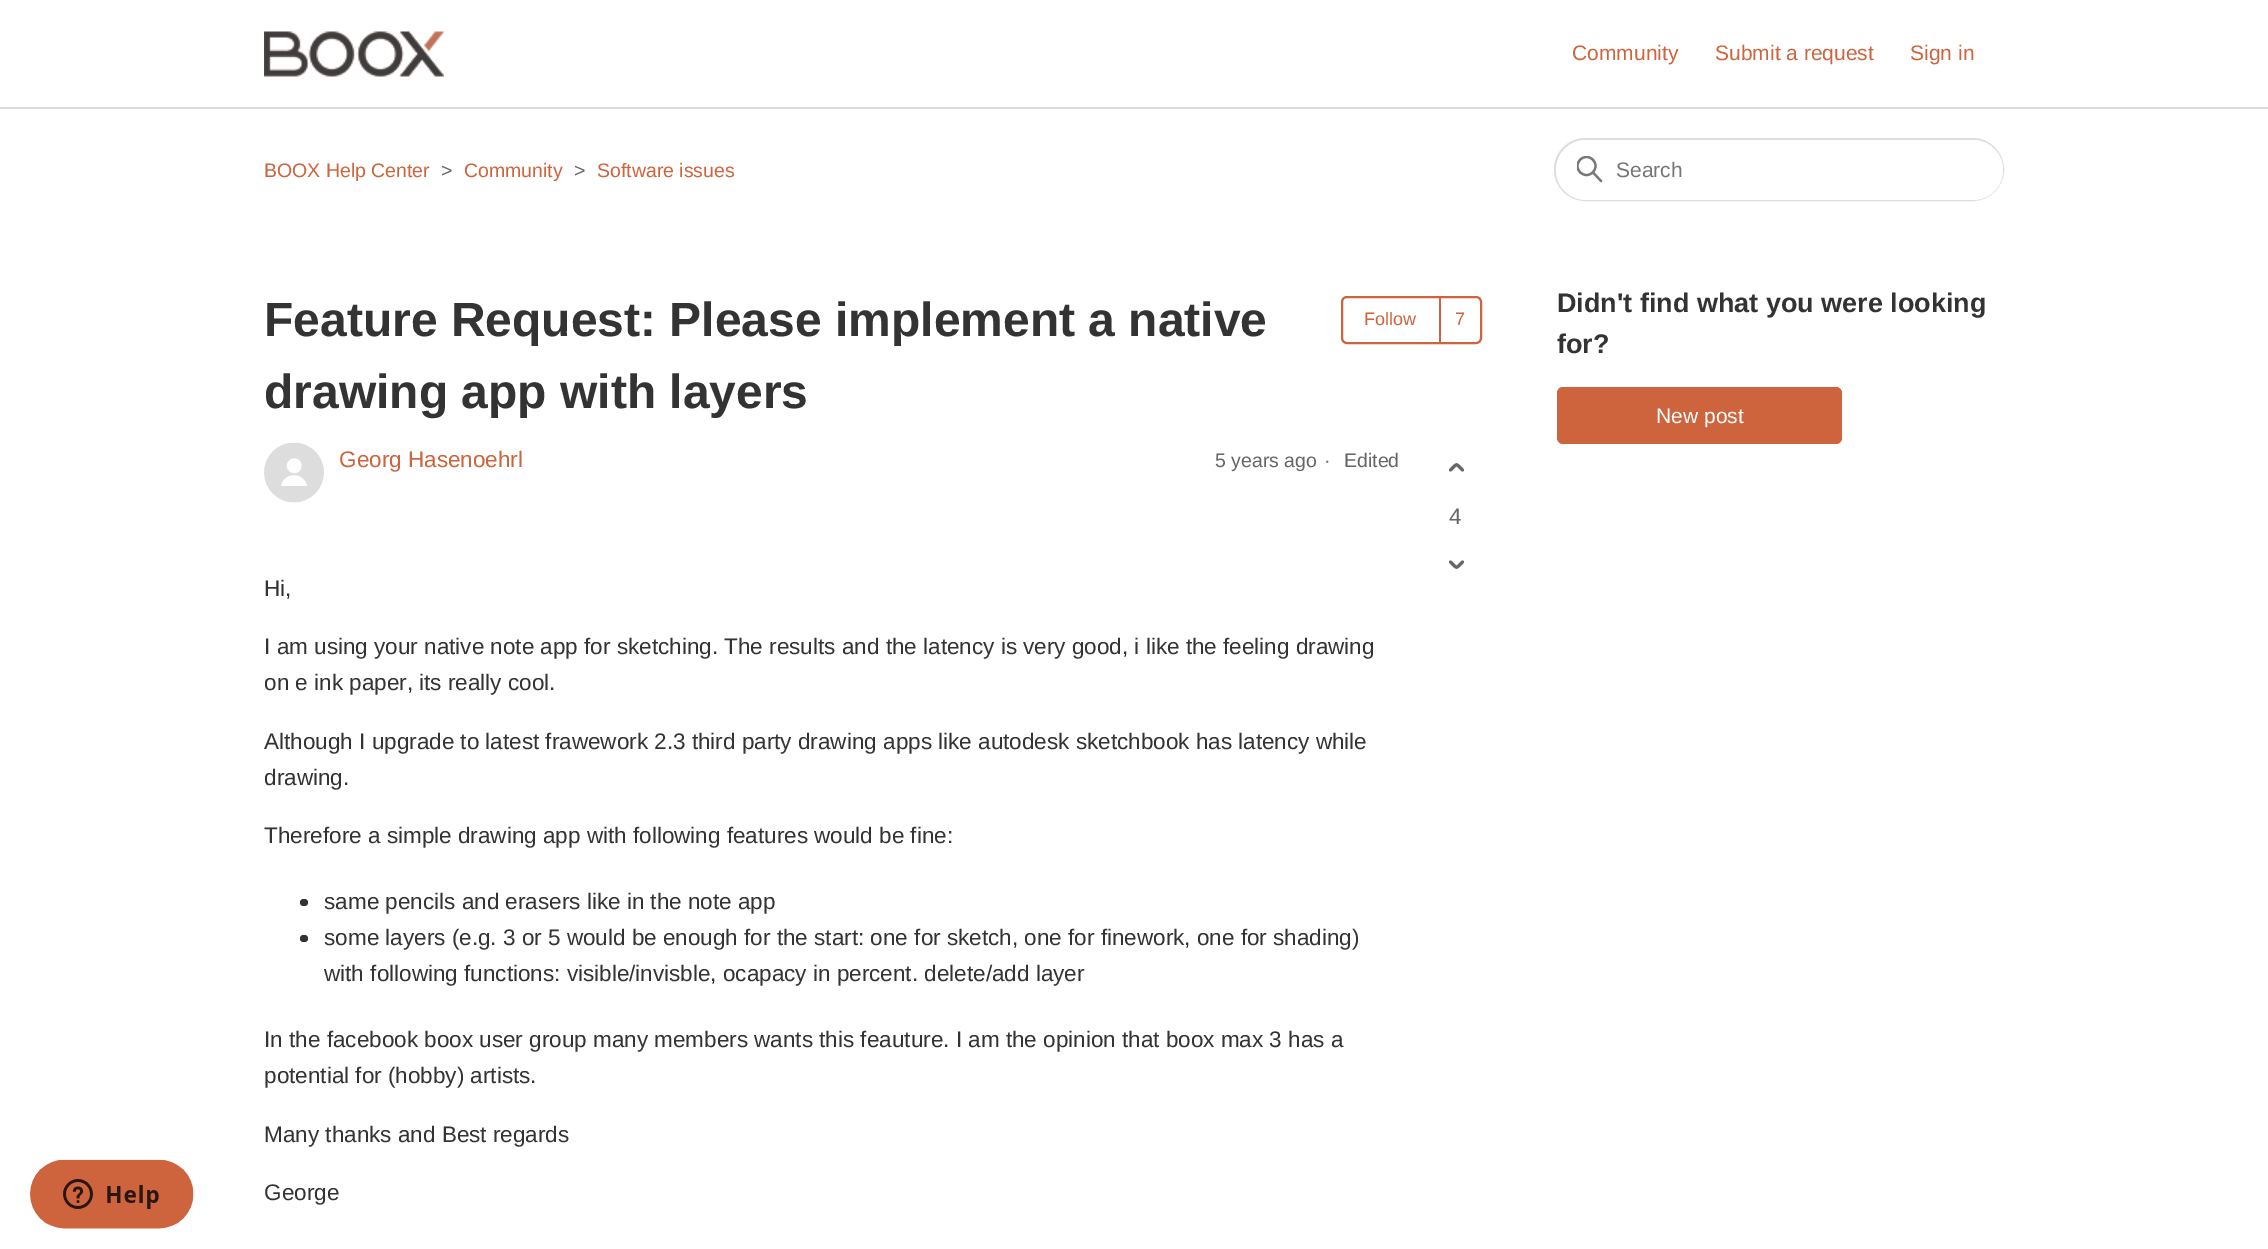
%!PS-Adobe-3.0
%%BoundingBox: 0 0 2268 1249
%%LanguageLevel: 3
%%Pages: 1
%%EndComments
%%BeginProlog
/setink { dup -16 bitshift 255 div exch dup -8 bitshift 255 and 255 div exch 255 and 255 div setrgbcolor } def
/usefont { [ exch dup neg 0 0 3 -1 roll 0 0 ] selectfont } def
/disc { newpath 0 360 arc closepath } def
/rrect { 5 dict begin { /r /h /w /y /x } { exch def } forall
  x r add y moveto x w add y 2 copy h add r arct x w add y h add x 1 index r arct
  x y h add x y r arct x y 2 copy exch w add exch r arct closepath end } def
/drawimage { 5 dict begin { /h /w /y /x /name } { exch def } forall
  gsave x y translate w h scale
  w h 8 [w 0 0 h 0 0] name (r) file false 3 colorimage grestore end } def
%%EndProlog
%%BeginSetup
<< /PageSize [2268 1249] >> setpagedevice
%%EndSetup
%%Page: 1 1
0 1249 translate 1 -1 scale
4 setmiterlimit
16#FFFFFF setink
0 0 2268 1249 rectfill
(img1.raw) 264 31 180 46 drawimage
/LiberationSans-Regular 21 usefont
16#CE643D setink
[
    [(Community) 1572 60]
    [(Submit a request) 1715 60]
    [(Sign in) 1910 60]
] { aload pop moveto show } forall
(img2.raw) 30 1159 164 70 drawimage
16#DDDDDD setink
0 107 2268 2 rectfill
/LiberationSans-Regular 19.5 usefont
16#CE643D setink
264 177 moveto (BOOX Help Center) show
16#666666 setink
441 177 moveto (>) show
16#CE643D setink
464 177 moveto (Community) show
16#666666 setink
574 177 moveto (>) show
16#CE643D setink
597 177 moveto (Software issues) show
16#DDDDDD setink
2 setlinewidth
1555 139 448 61 30.5 rrect stroke
16#FFFFFF setink
1556 140 447 60 30 rrect fill
gsave
1577 156 27 27 rectclip
16#777777 setink
2.2 setlinewidth
1586.5 166 9 disc stroke
grestore
16#777777 setink
2.2 setlinewidth
1 setlinecap
1601 181 moveto 1593.5 173 lineto stroke
/LiberationSans-Regular 21 usefont
16#757575 setink
1616 177 moveto (Search) show
/LiberationSans-Bold 48 usefont
16#333333 setink
264 336 moveto (Feature Request: Please implement a native) show
264 408 moveto (drawing app with layers) show
16#CE643D setink
2 setlinewidth
0 setlinecap
1342 297 139 46 5 rrect stroke
/LiberationSans-Regular 18 usefont
1364 325 moveto (Follow) show
1439 297 2 45 rectfill
1455 325 moveto (7) show
(img3.raw) 264 442 60 61 drawimage
/LiberationSans-Regular 22.5 usefont
339 467 moveto (Georg Hasenoehrl) show
/LiberationSans-Regular 19.5 usefont
16#666666 setink
[
    [(5 years ago) 1215 467]
    [(·) 1324 467]
    [(Edited) 1344 467]
] { aload pop moveto show } forall
/LiberationSans-Regular 22.5 usefont
16#333333 setink
[
    [(Hi,) 264 596]
    [(I am using your native note app for sketching. The results and the latency is very good, i like the feeling drawing) 264 654]
    [(on e ink paper, its really cool.) 264 690]
    [(Although I upgrade to latest frawework 2.3 third party drawing apps like autodesk sketchbook has latency while) 264 749]
    [(drawing.) 264 785]
    [(Therefore a simple drawing app with following features would be fine:) 264 843]
] { aload pop moveto show } forall
300 899 8 7 3.5 rrect fill
324 909 moveto (same pencils and erasers like in the note app) show
300 935 8 7 3.5 rrect fill
[
    [(some layers \(e.g. 3 or 5 would be enough for the start: one for sketch, one for finework, one for shading\)) 324 945]
    [(with following functions: visible/invisble, ocapacy in percent. delete/add layer) 324 981]
    [(In the facebook boox user group many members wants this feauture. I am the opinion that boox max 3 has a) 264 1047]
    [(potential for \(hobby\) artists.) 264 1083]
    [(Many thanks and Best regards) 264 1142]
    [(George) 264 1200]
] { aload pop moveto show } forall
16#666666 setink
3 setlinewidth
1 setlinecap
1450.5 470 moveto 1458 463 1455 463 1462.5 470 curveto stroke
1449 524 moveto (4) show
1450.5 562 moveto 1458 569 1455 569 1462.5 562 curveto stroke
/LiberationSans-Bold 27 usefont
16#333333 setink
1557 312 moveto (Didn't find what you were looking) show
1557 353 moveto (for?) show
16#CE643D setink
1557 387 285 57 6 rrect fill
/LiberationSans-Regular 21 usefont
16#FFFFFF setink
1656 423 moveto (New post) show
showpage
%%EOF
